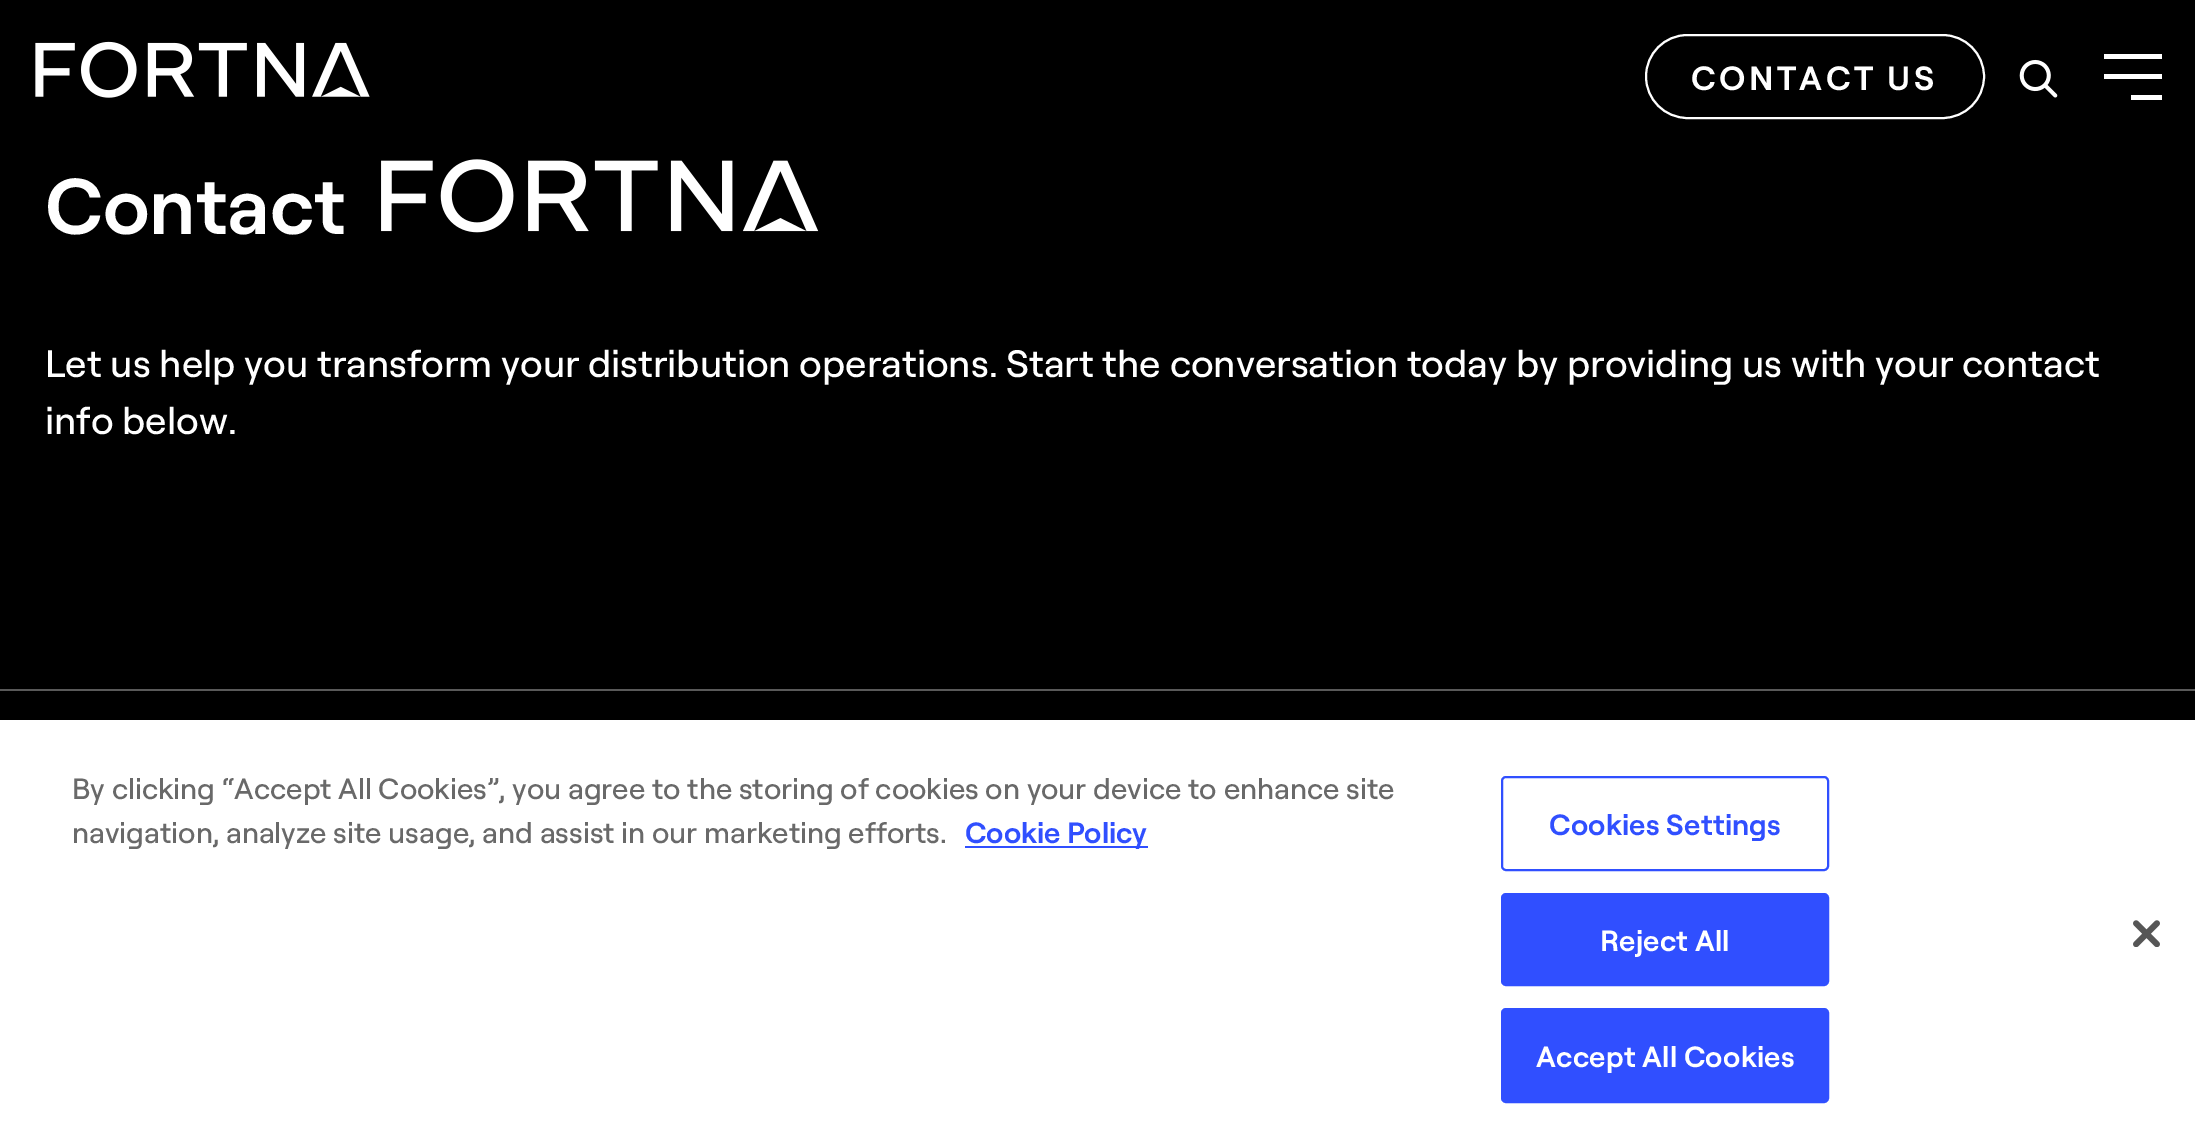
%!PS-Adobe-3.0
%%BoundingBox: 0 0 2195 1147
%%LanguageLevel: 3
%%Pages: 1
%%EndComments
%%BeginProlog
/setink { dup -16 bitshift 255 div exch dup -8 bitshift 255 and 255 div exch 255 and 255 div setrgbcolor } def
/usefont { [ exch dup neg 0 0 3 -1 roll 0 0 ] selectfont } def
/rrect { 5 dict begin { /r /h /w /y /x } { exch def } forall
  x r add y moveto x w add y 2 copy h add r arct x w add y h add x 1 index r arct
  x y h add x y r arct x y 2 copy exch w add exch r arct closepath end } def
/drawimage { 5 dict begin { /h /w /y /x /name } { exch def } forall
  gsave x y translate w h scale
  w h 8 [w 0 0 h 0 0] name (r) file false 3 colorimage grestore end } def
%%EndProlog
%%BeginSetup
<< /PageSize [2195 1147] >> setpagedevice
%%EndSetup
%%Page: 1 1
0 1147 translate 1 -1 scale
4 setmiterlimit
16#000000 setink
0 0 2195 1147 rectfill
(img1.raw) 35 41 335 57 drawimage
16#FFFFFF setink
2 setlinewidth
1646 35 338 83 41.5 rrect stroke
/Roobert-SemiBold 33.75 usefont
1691 90 moveto 3.4 0 (CONTACT US) ashow
(img2.raw) 2019 59 39 39 drawimage
[
    [2104 54 58 5 16#FFFFFF]
    [2104 74 58 5 16#FFFFFF]
    [2131 95 31 5 16#FFFFFF]
    [0 689 2195 2 16#595959]
] { aload pop setink rectfill } forall
/Roobert-SemiBold 79 usefont
16#FFFFFF setink
45 234 moveto (Contact) show
(img3.raw) 381 159 438 74 drawimage
/Roobert-Medium 38.25 usefont
45 377 moveto (Let us help you transform your distribution operations. Start the conversation today by providing us with your contact) show
45 434 moveto (info below.) show
0 720 2195 427 rectfill
/Roobert-Medium 29.25 usefont
16#696969 setink
72 799 moveto (By clicking “Accept All Cookies”, you agree to the storing of cookies on your device to enhance site) show
72 843 moveto (navigation, analyze site usage, and assist in our marketing efforts.) show
16#304FFF setink
965 846 183 2 rectfill
/Roobert-SemiBold 29.25 usefont
965 843 moveto (Cookie Policy) show
1502 777 326 93 4 rrect stroke
1549 835 moveto 0.25 0 (Cookies Settings) ashow
1502 894 326 91 4 rrect gsave fill grestore
stroke
16#FFFFFF setink
1600 951 moveto 0.25 0 (Reject All) ashow
16#304FFF setink
1502 1009 326 93 4 rrect gsave fill grestore
stroke
16#FFFFFF setink
1536 1067 moveto 0.25 0 (Accept All Cookies) ashow
(img4.raw) 2133 920 27 27 drawimage
showpage
%%EOF
